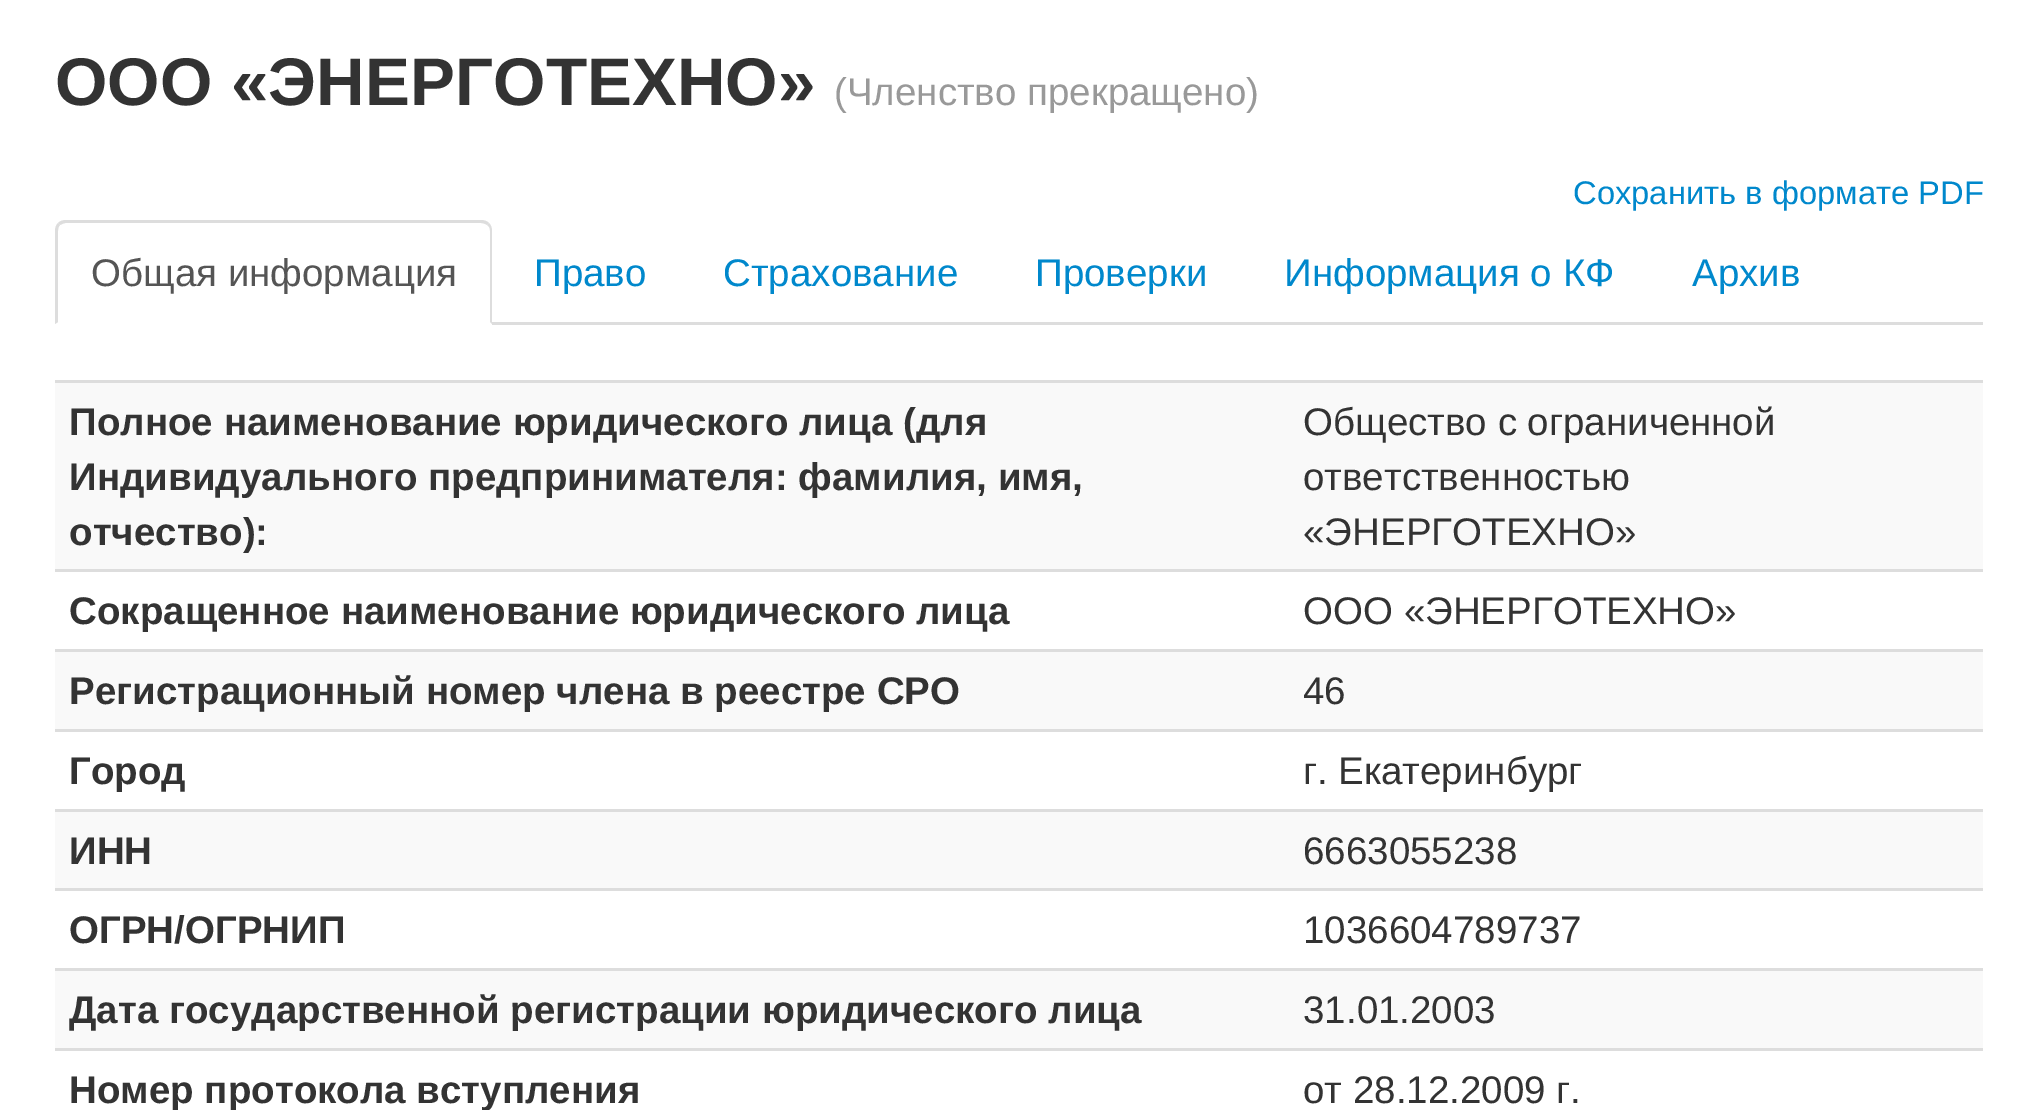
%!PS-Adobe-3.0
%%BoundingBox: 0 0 2037 1110
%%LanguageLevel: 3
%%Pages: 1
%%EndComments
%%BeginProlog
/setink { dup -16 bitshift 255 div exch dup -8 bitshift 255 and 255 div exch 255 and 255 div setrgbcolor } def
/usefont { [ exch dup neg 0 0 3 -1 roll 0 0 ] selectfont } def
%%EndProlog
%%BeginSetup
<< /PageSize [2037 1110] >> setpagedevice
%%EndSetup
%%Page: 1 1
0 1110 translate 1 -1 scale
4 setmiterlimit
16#FFFFFF setink
0 0 2037 1110 rectfill
/LiberationSans-Bold 67.4 usefont
16#333333 setink
55 105 moveto (ООО «ЭНЕРГОТЕХНО») show
/LiberationSans-Regular 38.5 usefont
16#999999 setink
834 105 moveto (\(Членство прекращено\)) show
/LiberationSans-Regular 32.75 usefont
16#0088CC setink
1573 204 moveto (Сохранить в формате PDF) show
16#DDDDDD setink
492 322 1491 3 rectfill
66 220 moveto 63 220 60 221 58 223 curveto 60 225 lineto 62 224 64 223 66 223 curveto 481 223 lineto 483 223 486 224 487 225 curveto 489 223 lineto 487 221 484 220 481 220 curveto closepath fill
489 223 moveto 491 225 492 228 492 231 curveto 492 324 lineto 490 322 lineto 490 231 lineto 490 228 489 226 487 225 curveto closepath fill
55 231 moveto 55 324 lineto 58 322 lineto 58 231 lineto 58 228 59 226 60 225 curveto 58 223 lineto 56 225 55 228 55 231 curveto closepath fill
/LiberationSans-Regular 38.5 usefont
16#555555 setink
91 286 moveto (Общая информация) show
16#0088CC setink
[
    [(Право) 534 286]
    [(Страхование) 723 286]
    [(Проверки) 1035 286]
    [(Информация о КФ) 1284 286]
    [(Архив) 1692 286]
] { aload pop moveto show } forall
16#F9F9F9 setink
55 383 1928 186 rectfill
/LiberationSans-Bold 38.5 usefont
16#333333 setink
[
    [(Полное наименование юридического лица \(для) 69 435]
    [(Индивидуального предпринимателя: фамилия, имя,) 69 490]
    [(отчество\):) 69 545]
] { aload pop moveto show } forall
16#DDDDDD setink
55 380 1928 3 rectfill
/LiberationSans-Regular 38.5 usefont
16#333333 setink
[
    [(Общество с ограниченной) 1303 435]
    [(ответственностью) 1303 490]
    [(«ЭНЕРГОТЕХНО») 1303 545]
] { aload pop moveto show } forall
/LiberationSans-Bold 38.5 usefont
69 624 moveto (Сокращенное наименование юридического лица) show
16#DDDDDD setink
55 569 1928 3 rectfill
/LiberationSans-Regular 38.5 usefont
16#333333 setink
1303 624 moveto (ООО «ЭНЕРГОТЕХНО») show
16#F9F9F9 setink
55 652 1928 77 rectfill
/LiberationSans-Bold 38.5 usefont
16#333333 setink
69 704 moveto (Регистрационный номер члена в реестре СРО) show
16#DDDDDD setink
55 649 1928 3 rectfill
/LiberationSans-Regular 38.5 usefont
16#333333 setink
1303 704 moveto (46) show
/LiberationSans-Bold 38.5 usefont
69 784 moveto (Город) show
16#DDDDDD setink
55 729 1928 3 rectfill
/LiberationSans-Regular 38.5 usefont
16#333333 setink
1303 784 moveto (г. Екатеринбург) show
16#F9F9F9 setink
55 812 1928 76 rectfill
/LiberationSans-Bold 38.5 usefont
16#333333 setink
69 864 moveto (ИНН) show
16#DDDDDD setink
55 809 1928 3 rectfill
/LiberationSans-Regular 38.5 usefont
16#333333 setink
1303 864 moveto (6663055238) show
/LiberationSans-Bold 38.5 usefont
69 943 moveto (ОГРН/ОГРНИП) show
16#DDDDDD setink
55 888 1928 3 rectfill
/LiberationSans-Regular 38.5 usefont
16#333333 setink
1303 943 moveto (1036604789737) show
16#F9F9F9 setink
55 971 1928 77 rectfill
/LiberationSans-Bold 38.5 usefont
16#333333 setink
69 1023 moveto (Дата государственной регистрации юридического лица) show
16#DDDDDD setink
55 968 1928 3 rectfill
/LiberationSans-Regular 38.5 usefont
16#333333 setink
1303 1023 moveto (31.01.2003) show
/LiberationSans-Bold 38.5 usefont
69 1103 moveto (Номер протокола вступления) show
16#DDDDDD setink
55 1048 1928 3 rectfill
/LiberationSans-Regular 38.5 usefont
16#333333 setink
1303 1103 moveto (от 28.12.2009 г.) show
showpage
%%EOF
